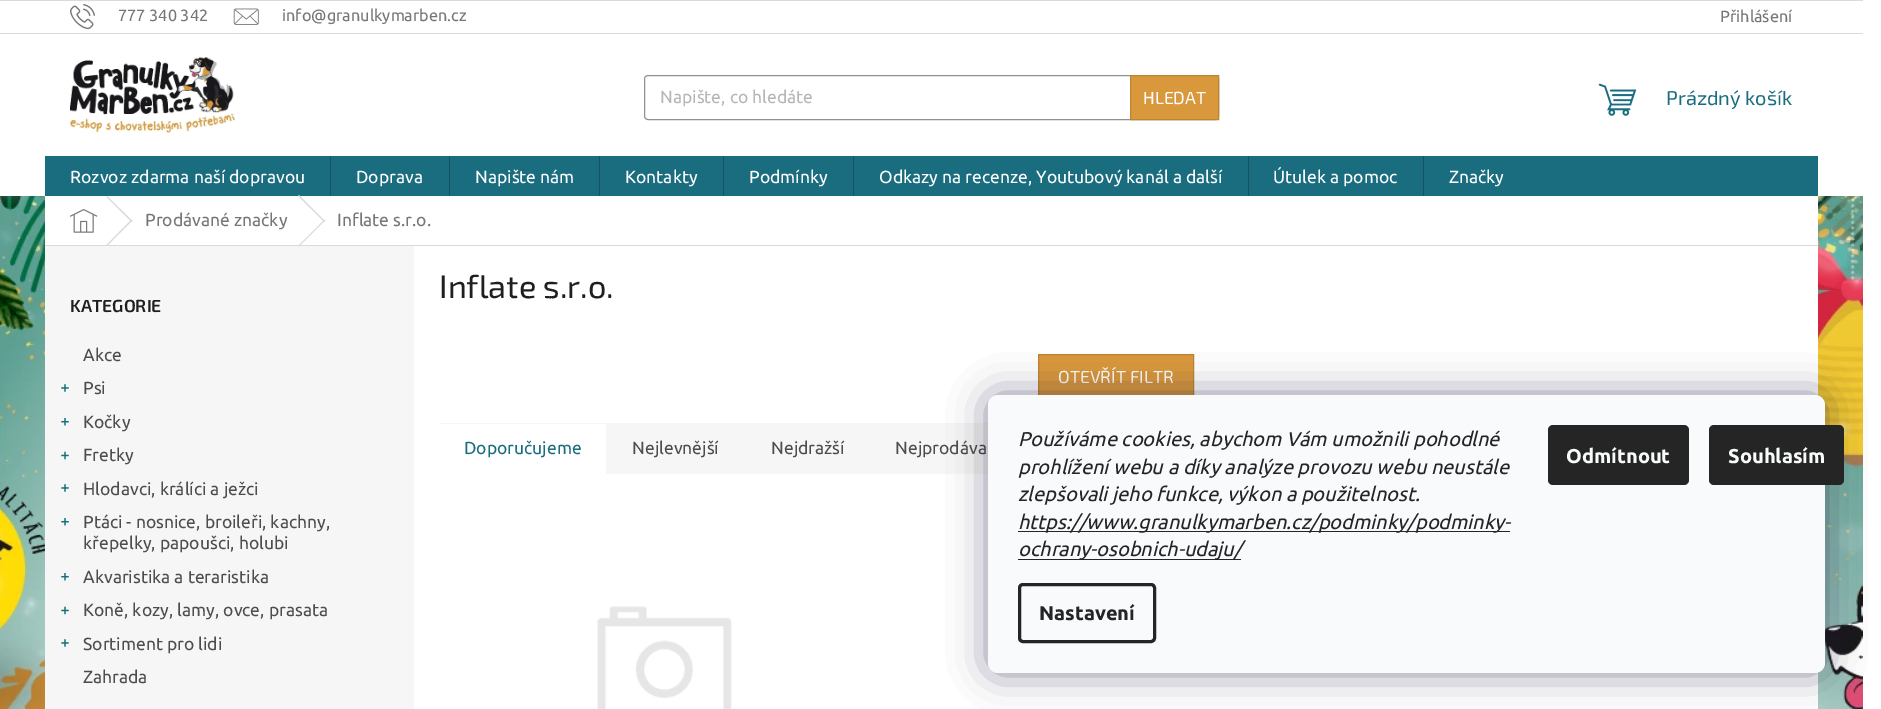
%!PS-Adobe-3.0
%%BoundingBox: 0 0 1881 709
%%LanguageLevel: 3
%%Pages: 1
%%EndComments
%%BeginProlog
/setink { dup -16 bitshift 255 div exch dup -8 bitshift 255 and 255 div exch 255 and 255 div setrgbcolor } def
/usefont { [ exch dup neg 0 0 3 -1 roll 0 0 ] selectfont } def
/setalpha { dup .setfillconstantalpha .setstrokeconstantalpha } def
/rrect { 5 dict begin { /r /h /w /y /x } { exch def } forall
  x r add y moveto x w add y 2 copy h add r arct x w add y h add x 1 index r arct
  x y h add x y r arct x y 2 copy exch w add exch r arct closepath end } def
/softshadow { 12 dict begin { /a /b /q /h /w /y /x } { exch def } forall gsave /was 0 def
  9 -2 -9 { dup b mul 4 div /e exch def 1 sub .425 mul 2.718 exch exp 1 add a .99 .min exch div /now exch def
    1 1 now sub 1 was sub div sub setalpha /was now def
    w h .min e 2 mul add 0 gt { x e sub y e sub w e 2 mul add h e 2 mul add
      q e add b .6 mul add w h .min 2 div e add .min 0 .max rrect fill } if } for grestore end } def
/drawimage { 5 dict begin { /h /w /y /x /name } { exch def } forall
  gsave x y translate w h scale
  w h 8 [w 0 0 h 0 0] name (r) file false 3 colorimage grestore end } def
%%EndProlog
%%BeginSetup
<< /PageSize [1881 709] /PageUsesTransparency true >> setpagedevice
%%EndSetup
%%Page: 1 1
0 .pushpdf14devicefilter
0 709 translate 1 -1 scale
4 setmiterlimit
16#FFFFFF setink
0 0 1881 709 rectfill
(img1.raw) 0 196 1863 513 drawimage
16#DADADA setink
0 0 1863 1 rectfill
0 33 1863 1 rectfill
(img2.raw) 70 4 25 26 drawimage
/Ubuntu-Regular 16.25 usefont
16#767676 setink
118 21 moveto (777 340 342) show
(img3.raw) 233 8 26 17 drawimage
282 21 moveto (info@granulkymarben.cz) show
1720 22 moveto (Přihlášení) show
(img4.raw) 70 57 165 76 drawimage
16#919191 setink
644.5 75.5 574 44 3.5 rrect stroke
/Ubuntu-Regular 17.5 usefont
16#B6B6B6 setink
660 103 moveto (Napište, co hledáte) show
16#DA983C setink
1130.5 75.5 moveto 1218.5 75.5 lineto 1218.5 119.5 lineto 1130.5 119.5 lineto closepath gsave fill grestore
16#BE8531 setink
stroke
/Exo2-Regular 17.5 usefont
16#FFFFFF setink
1143 104 moveto (HLEDAT) show
(img5.raw) 1598 83 39 33 drawimage
/Exo2-Regular 20 usefont
16#1A6D7F setink
1666 105 moveto (Prázdný košík) show
45 156 1773 40 rectfill
/Ubuntu-Regular 17.5 usefont
16#FFFFFF setink
70 183 moveto (Rozvoz zdarma naší dopravou) show
16#145361 setink
330 156 1 40 rectfill
16#FFFFFF setink
356 183 moveto (Doprava) show
16#145361 setink
449 156 1 40 rectfill
16#FFFFFF setink
475 183 moveto (Napište nám) show
16#145361 setink
599 156 1 40 rectfill
16#FFFFFF setink
625 183 moveto (Kontakty) show
16#145361 setink
723 156 1 40 rectfill
16#FFFFFF setink
749 183 moveto (Podmínky) show
16#145361 setink
853 156 1 40 rectfill
16#FFFFFF setink
879 183 moveto (Odkazy na recenze, Youtubový kanál a další) show
16#145361 setink
1248 156 1 40 rectfill
16#FFFFFF setink
1273 183 moveto (Útulek a pomoc) show
16#145361 setink
1423 156 1 40 rectfill
16#FFFFFF setink
1449 183 moveto (Značky) show
45 196 1773 49 rectfill
16#DADADA setink
45 245 1773 1 rectfill
(img6.raw) 70 209 28 24 drawimage
106.5 197 moveto 107 196 lineto 132.5 221 lineto 131.5 222 lineto closepath fill
131.5 219.5 moveto 132.5 220.5 lineto 107 246 lineto 106.5 245 lineto closepath fill
16#767676 setink
145 226 moveto (Prodávané značky) show
16#DADADA setink
298 196 moveto 299 195 lineto 325 221 lineto 324.5 222 lineto closepath fill
16#F6F6F6 setink
45 246 369 463 rectfill
16#DADADA setink
324.5 219.5 moveto 325 220.5 lineto 299 246.5 lineto 298 246 lineto closepath fill
16#767676 setink
337 226 moveto (Inflate s.r.o.) show
16#FFFFFF setink
1671 246 147 463 rectfill
/Exo2-SemiBold 17.5 usefont
16#1F1F1F setink
70 312 moveto (KATEGORIE) show
/Ubuntu-Regular 17.5 usefont
16#4D4D4D setink
83 361 moveto (Akce) show
(img7.raw) 61 384 8 8 drawimage
83 394 moveto (Psi) show
(img8.raw) 61 418 8 8 drawimage
83 428 moveto (Kočky) show
(img9.raw) 61 451 8 9 drawimage
83 461 moveto (Fretky) show
(img7.raw) 61 484 8 8 drawimage
83 495 moveto (Hlodavci, králíci a ježci) show
(img8.raw) 61 518 8 8 drawimage
83 528 moveto (Ptáci - nosnice, broileři, kachny,) show
83 549 moveto (křepelky, papoušci, holubi) show
(img8.raw) 61 573 8 8 drawimage
83 583 moveto (Akvaristika a teraristika) show
(img9.raw) 61 606 8 9 drawimage
83 616 moveto (Koně, kozy, lamy, ovce, prasata) show
(img7.raw) 61 639 8 8 drawimage
83 650 moveto (Sortiment pro lidi) show
83 683 moveto (Zahrada) show
/Exo2-Regular 32.5 usefont
16#1F1F1F setink
439 298 moveto (Inflate s.r.o.) show
16#DA983C setink
1039 355 154 40 rectfill
16#BE8531 setink
1038.5 354.5 155 44 rectstroke
/Exo2-Regular 17.5 usefont
16#FFFFFF setink
1058 383 moveto (OTEVŘÍT FILTR) show
16#F6F6F6 setink
439 423 549 51 rectfill
16#FFFFFF setink
439 424 167 50 rectfill
/Ubuntu-Regular 17.5 usefont
16#1A6D7F setink
464 454 moveto (Doporučujeme) show
16#4D4D4D setink
[
    [(Nejlevnější) 632 454]
    [(Nejdražší) 771 454]
    [(Nejprodáva) 895 454]
] { aload pop moveto show } forall
(img10.raw) 597 606 135 103 drawimage
16#1B1939 setink
988 395 837 278 10 19 0.5 softshadow
16#F8FAFB setink
988 395 837 278 10 rrect fill
/Ubuntu-Italic 20 usefont
16#252525 setink
[
    [(Používáme cookies, abychom Vám umožnili pohodlné) 1018 446]
    [(prohlížení webu a díky analýze provozu webu neustále) 1018 474]
    [(zlepšovali jeho funkce, výkon a použitelnost.) 1018 501]
] { aload pop moveto show } forall
1018 531 492 1 rectfill
1018 529 moveto (https://www.granulkymarben.cz/podminky/podminky-) show
1018 559 223 1 rectfill
1018 556 moveto (ochrany-osobnich-udaju/) show
3 setlinewidth
1019.5 584.5 135 57 3.5 rrect stroke
/Ubuntu-Bold 20 usefont
1039 620 moveto (Nastavení) show
1548 425 141 60 5 rrect fill
16#F8FAFB setink
1566 463 moveto (Odmítnout) show
16#252525 setink
1709 425 135 60 5 rrect fill
16#F8FAFB setink
1728 463 moveto (Souhlasím) show
.poppdf14devicefilter showpage
%%EOF
